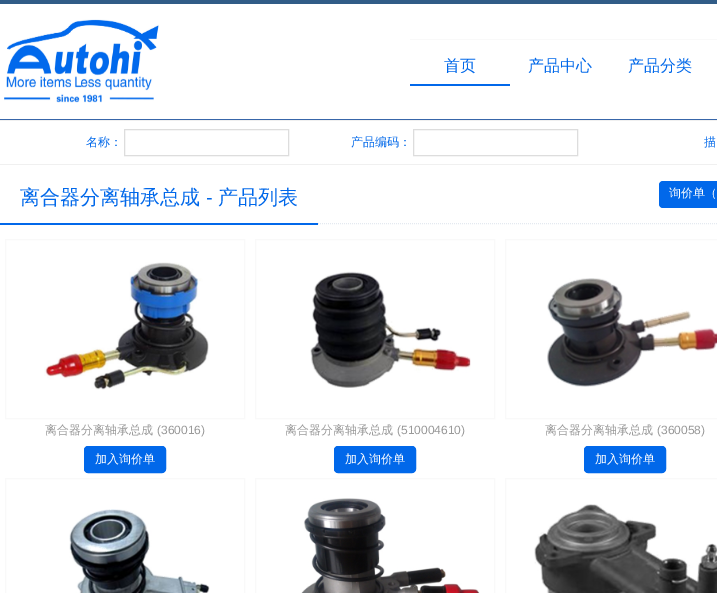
%!PS-Adobe-3.0
%%BoundingBox: 0 0 717 593
%%LanguageLevel: 3
%%Pages: 1
%%EndComments
%%BeginProlog
/setink { dup -16 bitshift 255 div exch dup -8 bitshift 255 and 255 div exch 255 and 255 div setrgbcolor } def
/usefont { [ exch dup neg 0 0 3 -1 roll 0 0 ] selectfont } def
/rrect { 5 dict begin { /r /h /w /y /x } { exch def } forall
  x r add y moveto x w add y 2 copy h add r arct x w add y h add x 1 index r arct
  x y h add x y r arct x y 2 copy exch w add exch r arct closepath end } def
/drawimage { 5 dict begin { /h /w /y /x /name } { exch def } forall
  gsave x y translate w h scale
  w h 8 [w 0 0 h 0 0] name (r) file false 3 colorimage grestore end } def
%%EndProlog
%%BeginSetup
<< /PageSize [717 593] >> setpagedevice
%%EndSetup
%%Page: 1 1
0 593 translate 1 -1 scale
4 setmiterlimit
16#FFFFFF setink
0 0 717 593 rectfill
16#315C87 setink
0 0 717 4 rectfill
16#3866A9 setink
0 119 717 1 rectfill
(img1.raw) 4 19 155 84 drawimage
16#F9F9F9 setink
410 39 307 1 rectfill
16#0168EA setink
410 84 100 2 rectfill
/WenQuanYiZenHei-Medium 16 usefont
[
    [(首页) 444 71]
    [(产品中心) 528 71]
    [(产品分类) 628 71]
] { aload pop moveto show } forall
16#F0F0F0 setink
0 120 717 1 rectfill
0 164 717 1 rectfill
/WenQuanYiZenHei-Medium 12 usefont
16#0168EA setink
86 146 moveto (名称：) show
16#DDDDDD setink
124.5 129.5 164 26 rectstroke
16#0168EA setink
351 146 moveto (产品编码：) show
16#DDDDDD setink
413.5 129.5 164 26 rectstroke
16#0168EA setink
704 146 moveto (描) show
16#E4E9F0 setink
[1 1] 0 setdash
0 223.5 moveto 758 223.5 lineto stroke
16#0168EA setink
0 223 318 2 rectfill
/WenQuanYiZenHei-Medium 20 usefont
20 204 moveto (离合器分离轴承总成) show
/LiberationSans-Regular 20 usefont
206 204 moveto (-) show
/WenQuanYiZenHei-Medium 20 usefont
218 204 moveto (产品列表) show
659 181 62 27 4 rrect fill
/WenQuanYiZenHei-Medium 12 usefont
16#FFFFFF setink
669 197 moveto (询价单（) show
16#F9F9F9 setink
[] 0 setdash
5.5 239.5 239 179 rectstroke
(img2.raw) 44 262 165 128 drawimage
16#999999 setink
45 434 moveto (离合器分离轴承总成) show
/LiberationSans-Regular 12 usefont
157 434 moveto (\(360016\)) show
16#0168EA setink
84.5 446.5 81 26 3.5 rrect gsave fill grestore
stroke
/WenQuanYiZenHei-Medium 12 usefont
16#FFFFFF setink
95 463 moveto (加入询价单) show
16#F9F9F9 setink
255.5 239.5 239 179 rectstroke
(img3.raw) 310 271 161 117 drawimage
16#999999 setink
285 434 moveto (离合器分离轴承总成) show
/LiberationSans-Regular 12 usefont
397 434 moveto (\(510004610\)) show
16#0168EA setink
334.5 446.5 81 26 3.5 rrect gsave fill grestore
stroke
/WenQuanYiZenHei-Medium 12 usefont
16#FFFFFF setink
345 463 moveto (加入询价单) show
16#F9F9F9 setink
505.5 239.5 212 179 rectstroke
(img4.raw) 547 278 170 109 drawimage
16#999999 setink
545 434 moveto (离合器分离轴承总成) show
/LiberationSans-Regular 12 usefont
657 434 moveto (\(360058\)) show
16#0168EA setink
584.5 446.5 81 26 3.5 rrect gsave fill grestore
stroke
/WenQuanYiZenHei-Medium 12 usefont
16#FFFFFF setink
595 463 moveto (加入询价单) show
16#F9F9F9 setink
5.5 478.5 239 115 rectstroke
(img5.raw) 69 509 141 84 drawimage
255.5 478.5 239 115 rectstroke
(img6.raw) 301 498 179 95 drawimage
505.5 478.5 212 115 rectstroke
(img7.raw) 534 504 183 89 drawimage
showpage
%%EOF
